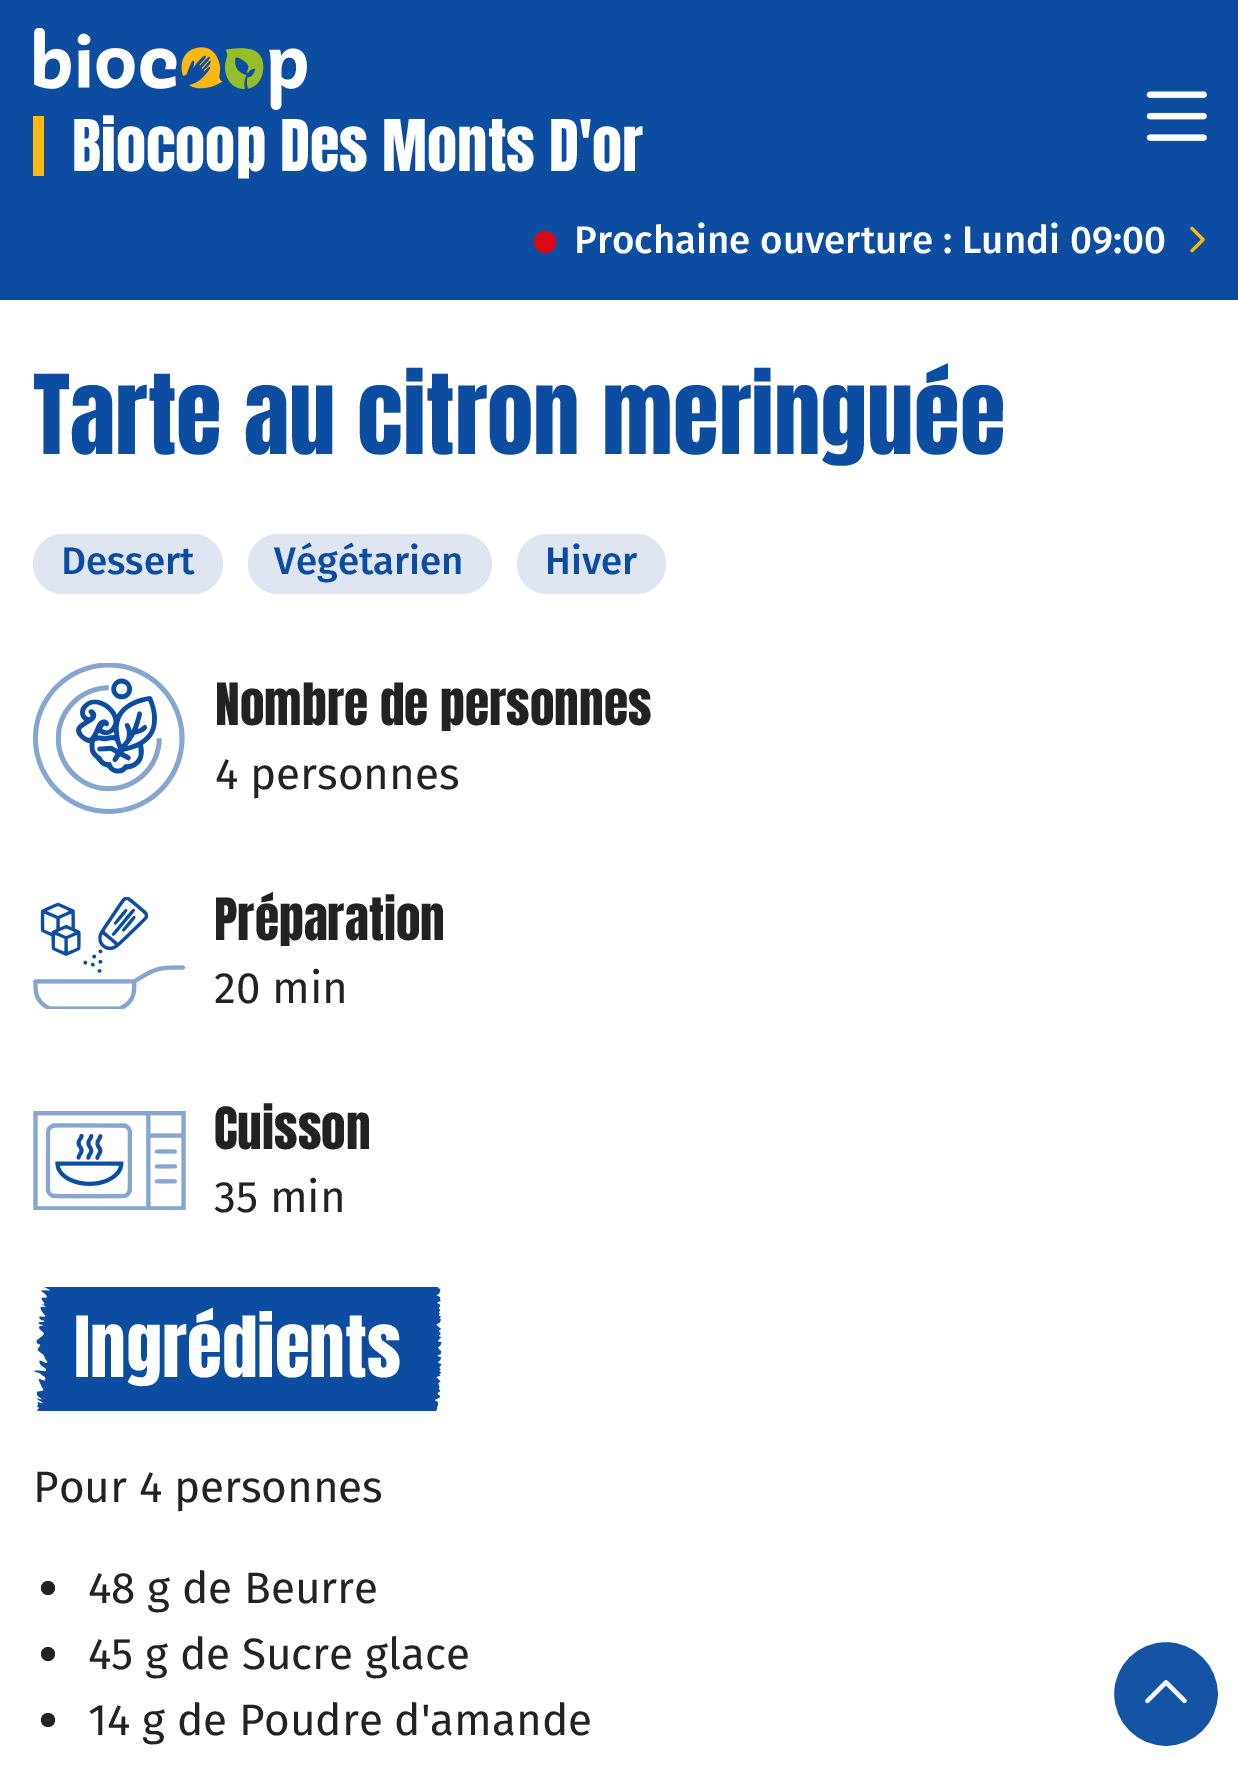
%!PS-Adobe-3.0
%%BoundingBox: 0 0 1238 1767
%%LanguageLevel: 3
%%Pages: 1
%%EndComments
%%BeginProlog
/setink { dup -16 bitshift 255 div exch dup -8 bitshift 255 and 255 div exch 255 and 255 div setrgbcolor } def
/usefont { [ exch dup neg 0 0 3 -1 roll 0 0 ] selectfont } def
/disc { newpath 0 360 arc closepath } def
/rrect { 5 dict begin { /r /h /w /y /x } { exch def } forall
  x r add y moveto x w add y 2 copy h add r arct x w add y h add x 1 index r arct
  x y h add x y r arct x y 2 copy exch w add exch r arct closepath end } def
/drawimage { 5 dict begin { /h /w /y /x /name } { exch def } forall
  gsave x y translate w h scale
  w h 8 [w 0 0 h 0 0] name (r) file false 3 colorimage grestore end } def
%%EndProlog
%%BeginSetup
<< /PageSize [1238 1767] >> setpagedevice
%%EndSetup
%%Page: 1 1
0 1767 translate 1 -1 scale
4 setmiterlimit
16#FFFFFF setink
0 0 1238 1767 rectfill
16#0C4DA2 setink
0 0 1238 300 rectfill
(img1.raw) 34 28 273 82 drawimage
16#FDB813 setink
33 116 11 60 rectfill
/Anton-Regular 60.5 usefont
16#FFFFFF setink
72 171 moveto (Biocoop Des Monts D'or) show
(img2.raw) 1146 91 61 50 drawimage
16#DA0812 setink
545 242 11 disc fill
/FiraSans-Medium 38.5 usefont
16#FFFFFF setink
574 253 moveto (Prochaine ouverture : Lundi 09:00) show
(img3.raw) 1190 226 15 27 drawimage
16#1553A5 setink
1166 1694 53.5 disc gsave fill grestore
16#FFFFFF setink
3 setlinewidth
stroke
(img4.raw) 1145 1680 42 24 drawimage
/Anton-Regular 93.5 usefont
16#0C4DA2 setink
33 454 moveto (Tarte au citron meringuée) show
16#DFE5F1 setink
33 534 190 60 30 rrect fill
/FiraSans-Medium 38.5 usefont
16#0C4DA2 setink
61 574 moveto (Dessert) show
16#DFE5F1 setink
248 534 244 60 30 rrect fill
16#0C4DA2 setink
274 574 moveto (Végétarien) show
16#DFE5F1 setink
517 534 149 60 30 rrect fill
16#0C4DA2 setink
545 574 moveto (Hiver) show
(img5.raw) 33 663 152 151 drawimage
/Anton-Regular 49.5 usefont
16#222222 setink
215 725 moveto (Nombre de personnes) show
/FiraSans-Regular 44 usefont
215 789 moveto (4 personnes) show
(img6.raw) 33 897 153 112 drawimage
/Anton-Regular 49.5 usefont
214 940 moveto (Préparation) show
/FiraSans-Regular 44 usefont
214 1003 moveto (20 min) show
(img7.raw) 33 1111 153 99 drawimage
/Anton-Regular 49.5 usefont
214 1149 moveto (Cuisson) show
/FiraSans-Regular 44 usefont
214 1212 moveto (35 min) show
(img8.raw) 34 1287 408 124 drawimage
/Anton-Regular 71.5 usefont
16#FFFFFF setink
74 1377 moveto (Ingrédients) show
/FiraSans-Regular 44 usefont
16#222222 setink
33 1502 moveto (Pour 4 personnes) show
48 1588 7 disc fill
88 1603 moveto (48 g de Beurre) show
48 1654 7 disc fill
88 1669 moveto (45 g de Sucre glace) show
48 1720 7 disc fill
88 1735 moveto (14 g de Poudre d'amande) show
showpage
%%EOF
